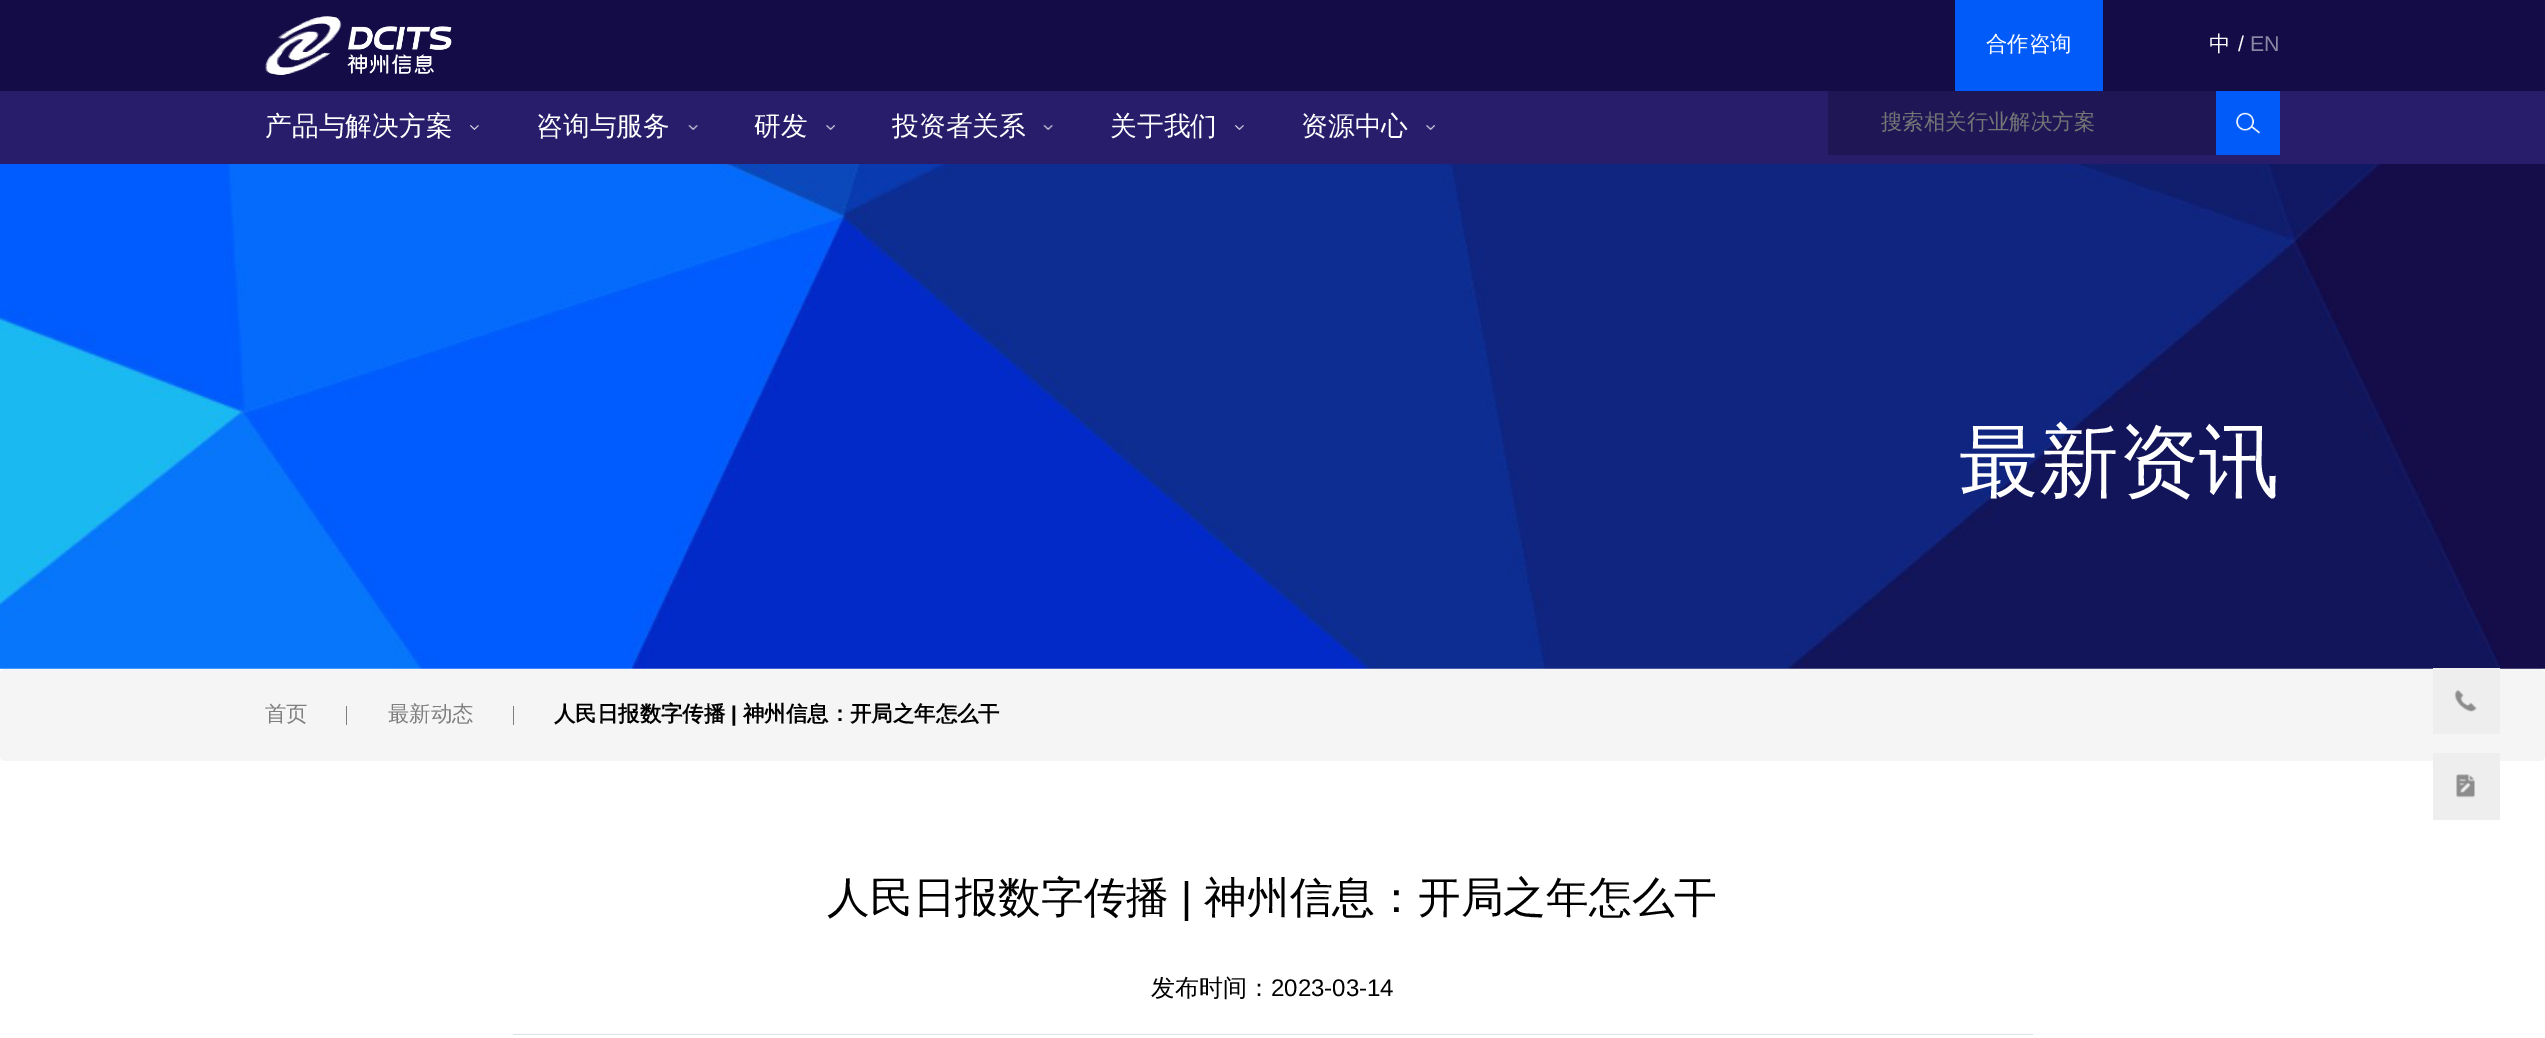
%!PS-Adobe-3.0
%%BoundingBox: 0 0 2545 1038
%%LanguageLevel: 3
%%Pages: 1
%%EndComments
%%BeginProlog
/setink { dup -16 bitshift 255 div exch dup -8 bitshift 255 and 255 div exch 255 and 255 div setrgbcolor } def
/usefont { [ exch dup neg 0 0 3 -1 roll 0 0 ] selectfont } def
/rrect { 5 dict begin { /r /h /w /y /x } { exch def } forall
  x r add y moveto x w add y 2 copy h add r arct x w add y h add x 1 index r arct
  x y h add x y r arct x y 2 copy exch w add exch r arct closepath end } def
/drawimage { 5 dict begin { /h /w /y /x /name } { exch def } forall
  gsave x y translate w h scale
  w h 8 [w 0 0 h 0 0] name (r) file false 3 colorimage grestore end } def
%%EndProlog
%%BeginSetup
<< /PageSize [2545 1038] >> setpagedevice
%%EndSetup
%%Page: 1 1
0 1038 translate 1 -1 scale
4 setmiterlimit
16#FFFFFF setink
0 0 2545 1038 rectfill
16#140C47 setink
0 0 2545 91 rectfill
(img1.raw) 265 16 187 59 drawimage
16#005BF9 setink
1955 0 148 91 rectfill
/WenQuanYiZenHei-Medium 21.4 usefont
16#FFFFFF setink
1986 51 moveto (合作咨询) show
2209 51 moveto (中) show
/LiberationSans-Regular 21.4 usefont
2238 51 moveto (/) show
16#8A86A3 setink
2250 51 moveto (EN) show
16#271D6A setink
0 91 2545 73 rectfill
(img2.raw) 470 125 9 5 drawimage
/WenQuanYiZenHei-Medium 26.75 usefont
16#FFFFFF setink
265 135 moveto (产品与解决方案) show
(img3.raw) 688 125 10 5 drawimage
536 135 moveto (咨询与服务) show
(img4.raw) 826 125 9 5 drawimage
754 135 moveto (研发) show
(img3.raw) 1043 125 10 5 drawimage
892 135 moveto (投资者关系) show
(img2.raw) 1235 125 9 5 drawimage
1110 135 moveto (关于我们) show
(img4.raw) 1426 125 9 5 drawimage
1301 135 moveto (资源中心) show
16#1F1755 setink
1828 91 388 64 rectfill
/WenQuanYiZenHei-Medium 21.4 usefont
16#757575 setink
1881 129 moveto (搜索相关行业解决方案) show
16#005BF9 setink
2216 91 64 64 rectfill
(img5.raw) 2236 112 24 22 drawimage
(img6.raw) 0 164 2545 505 drawimage
/WenQuanYiZenHei-Medium 80 usefont
16#FFFFFF setink
1959 489 moveto (最新资讯) show
16#F5F5F5 setink
0 669 2545 92 5 rrect fill
/WenQuanYiZenHei-Medium 21.4 usefont
16#7F7F7F setink
265 721 moveto (首页) show
346 706 1 19 rectfill
388 721 moveto (最新动态) show
513 706 1 19 rectfill
/WenQuanYiZenHei-Bold 21.4 usefont
16#000000 setink
554 721 moveto (人民日报数字传播) show
/LiberationSans-Bold 21.4 usefont
731 721 moveto (|) show
/WenQuanYiZenHei-Bold 21.4 usefont
743 721 moveto (神州信息：开局之年怎么干) show
16#E1E1E1 setink
513 1034 1520 1 rectfill
/WenQuanYiZenHei-Medium 42.75 usefont
16#000000 setink
827 912 moveto (人民日报数字传播) show
/LiberationSans-Regular 42.75 usefont
1181 912 moveto (|) show
/WenQuanYiZenHei-Medium 42.75 usefont
1204 912 moveto (神州信息：开局之年怎么干) show
/WenQuanYiZenHei-Medium 24 usefont
1151 996 moveto (发布时间：) show
/LiberationSans-Regular 24 usefont
1271 996 moveto (2023-03-14) show
16#EEEEEE setink
2433 668 67 66 rectfill
(img7.raw) 2454 690 23 22 drawimage
2433 753 67 67 rectfill
(img8.raw) 2456 774 19 24 drawimage
showpage
%%EOF
